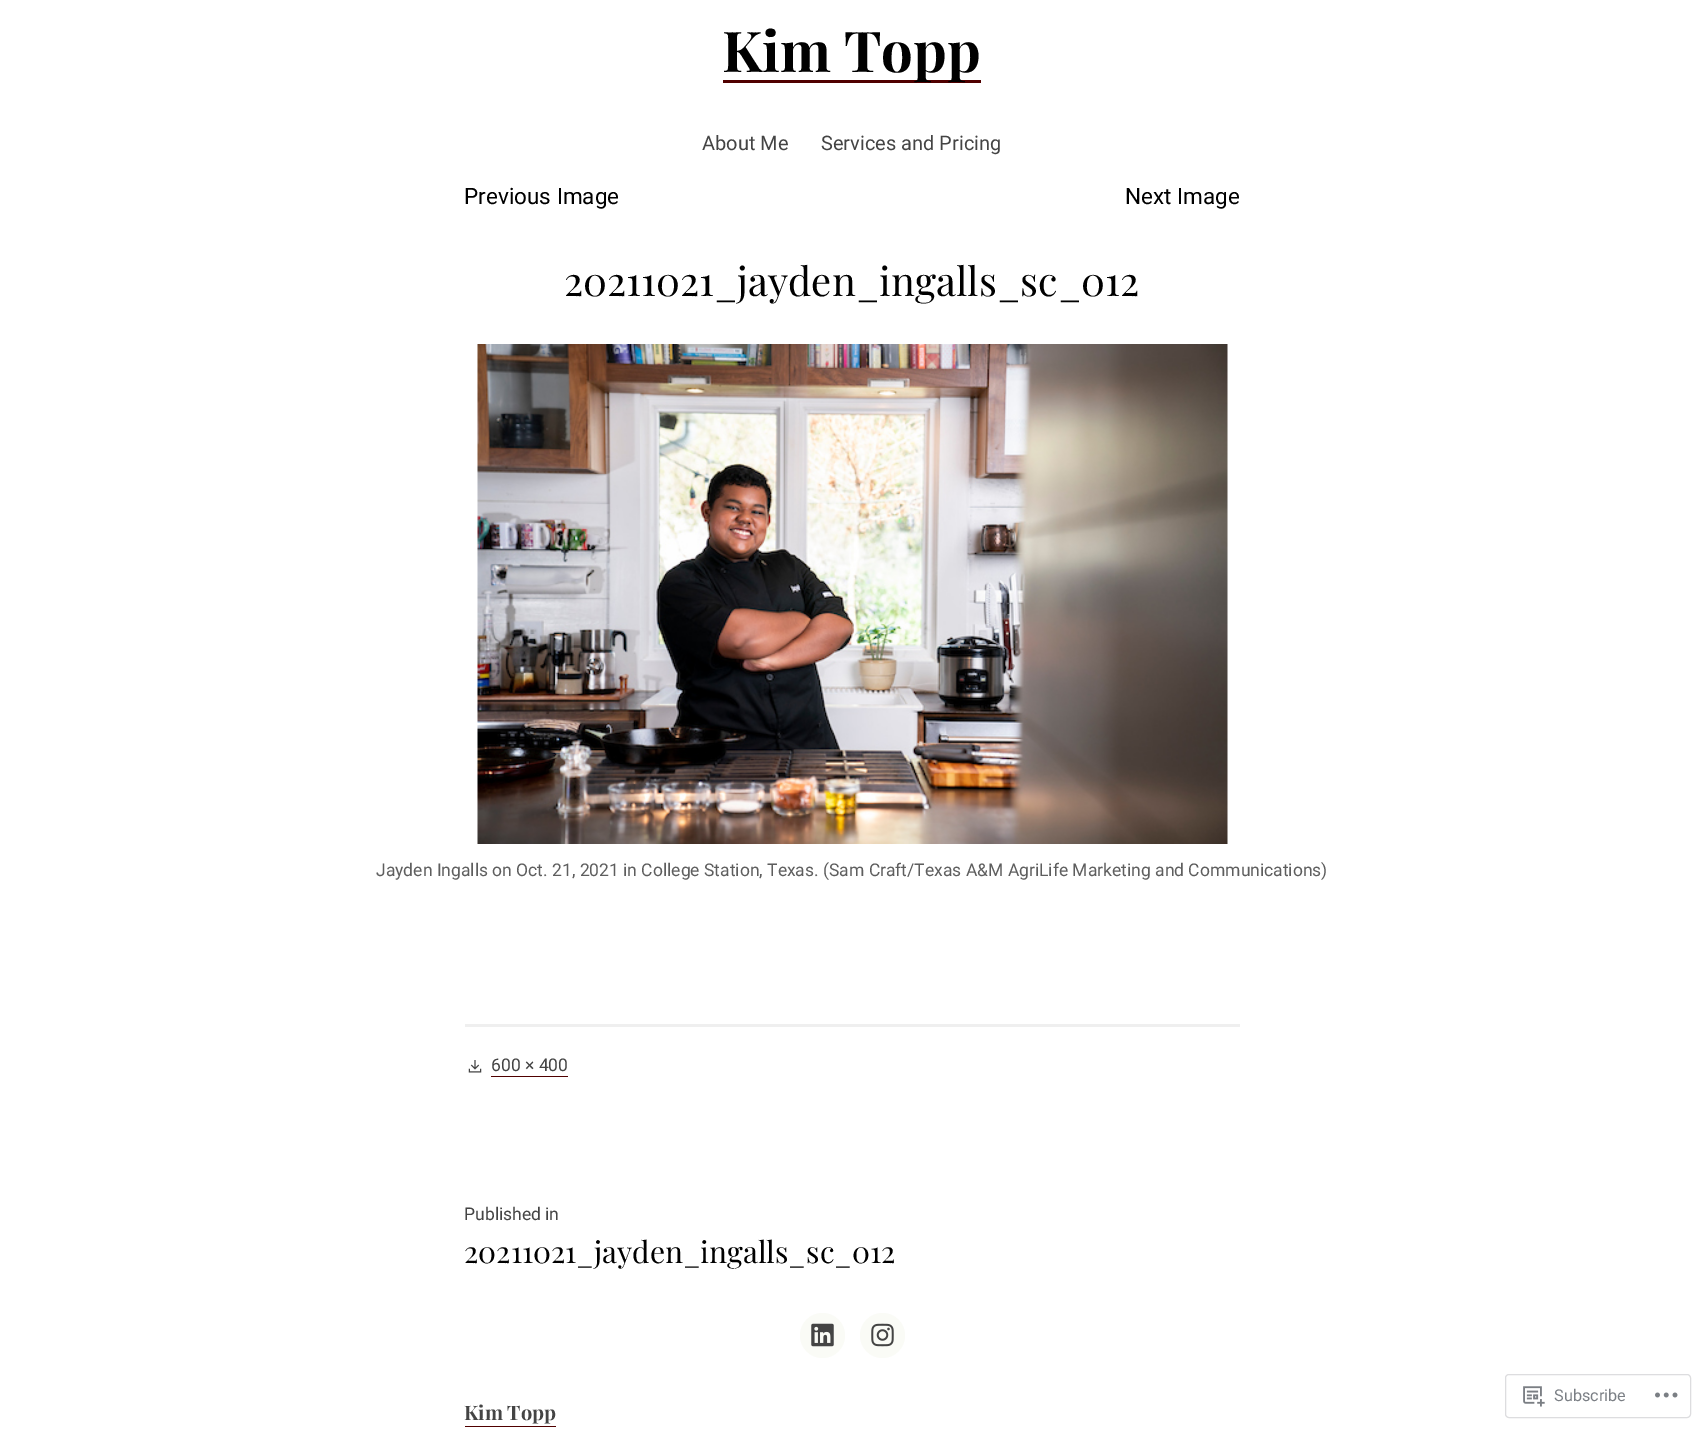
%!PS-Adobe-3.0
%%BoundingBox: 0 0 1703 1430
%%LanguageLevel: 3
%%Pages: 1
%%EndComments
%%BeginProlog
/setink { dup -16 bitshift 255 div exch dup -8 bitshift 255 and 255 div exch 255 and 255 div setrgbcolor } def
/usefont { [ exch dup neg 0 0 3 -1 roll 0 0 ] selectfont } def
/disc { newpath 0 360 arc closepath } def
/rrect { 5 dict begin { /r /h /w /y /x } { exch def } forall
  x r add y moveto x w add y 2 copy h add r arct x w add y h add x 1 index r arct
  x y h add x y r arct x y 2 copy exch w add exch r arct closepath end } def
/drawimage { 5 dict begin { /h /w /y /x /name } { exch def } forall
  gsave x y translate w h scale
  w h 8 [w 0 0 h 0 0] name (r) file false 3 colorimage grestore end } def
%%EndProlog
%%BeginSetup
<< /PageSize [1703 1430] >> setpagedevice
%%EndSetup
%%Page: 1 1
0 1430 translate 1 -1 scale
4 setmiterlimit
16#FFFFFF setink
0 0 1703 1430 rectfill
16#500000 setink
723 80 258 3 rectfill
/PlayfairDisplay-Bold 56.25 usefont
16#000000 setink
722 72 moveto (Kim Topp) show
/Roboto-Regular 20 usefont
16#444444 setink
702 150 moveto (About Me) show
821 150 moveto (Services and Pricing) show
/Roboto-Regular 22.5 usefont
16#000000 setink
464 204 moveto (Previous Image) show
1125 204 moveto (Next Image) show
/PlayfairDisplay-Regular 40 usefont
564 296 moveto (20211021_jayden_ingalls_sc_012) show
(img1.raw) 477 344 751 500 drawimage
/Roboto-Regular 17.5 usefont
16#5E5E5E setink
376 876 moveto (Jayden Ingalls on Oct. 21, 2021 in College Station, Texas. \(Sam Craft/Texas A&M AgriLife Marketing and Communications\)) show
16#EFEFEF setink
465 1024 775 3 rectfill
(img2.raw) 468 1060 14 13 drawimage
16#444444 setink
491 1071 moveto (600 × 400) show
16#500000 setink
491 1076 77 1 rectfill
16#444444 setink
464 1220 moveto (Published in) show
/PlayfairDisplay-Regular 30 usefont
16#000000 setink
464 1263 moveto (20211021_jayden_ingalls_sc_012) show
16#FAFBF6 setink
822.5 1335.5 22.5 disc fill
(img3.raw) 811 1323 23 24 drawimage
882.5 1335.5 22.5 disc fill
(img4.raw) 871 1323 23 24 drawimage
/PlayfairDisplay-Bold 20 usefont
16#444444 setink
464 1420 moveto (Kim Topp) show
16#500000 setink
465 1426 91 1 rectfill
16#DDDDDF setink
1505.5 1374.5 185 43 3.5 rrect stroke
(img5.raw) 1523 1386 22 21 drawimage
/Roboto-Regular 16.25 usefont
16#7B7F85 setink
1554 1401 moveto (Subscribe) show
(img6.raw) 1655 1392 23 6 drawimage
showpage
%%EOF
